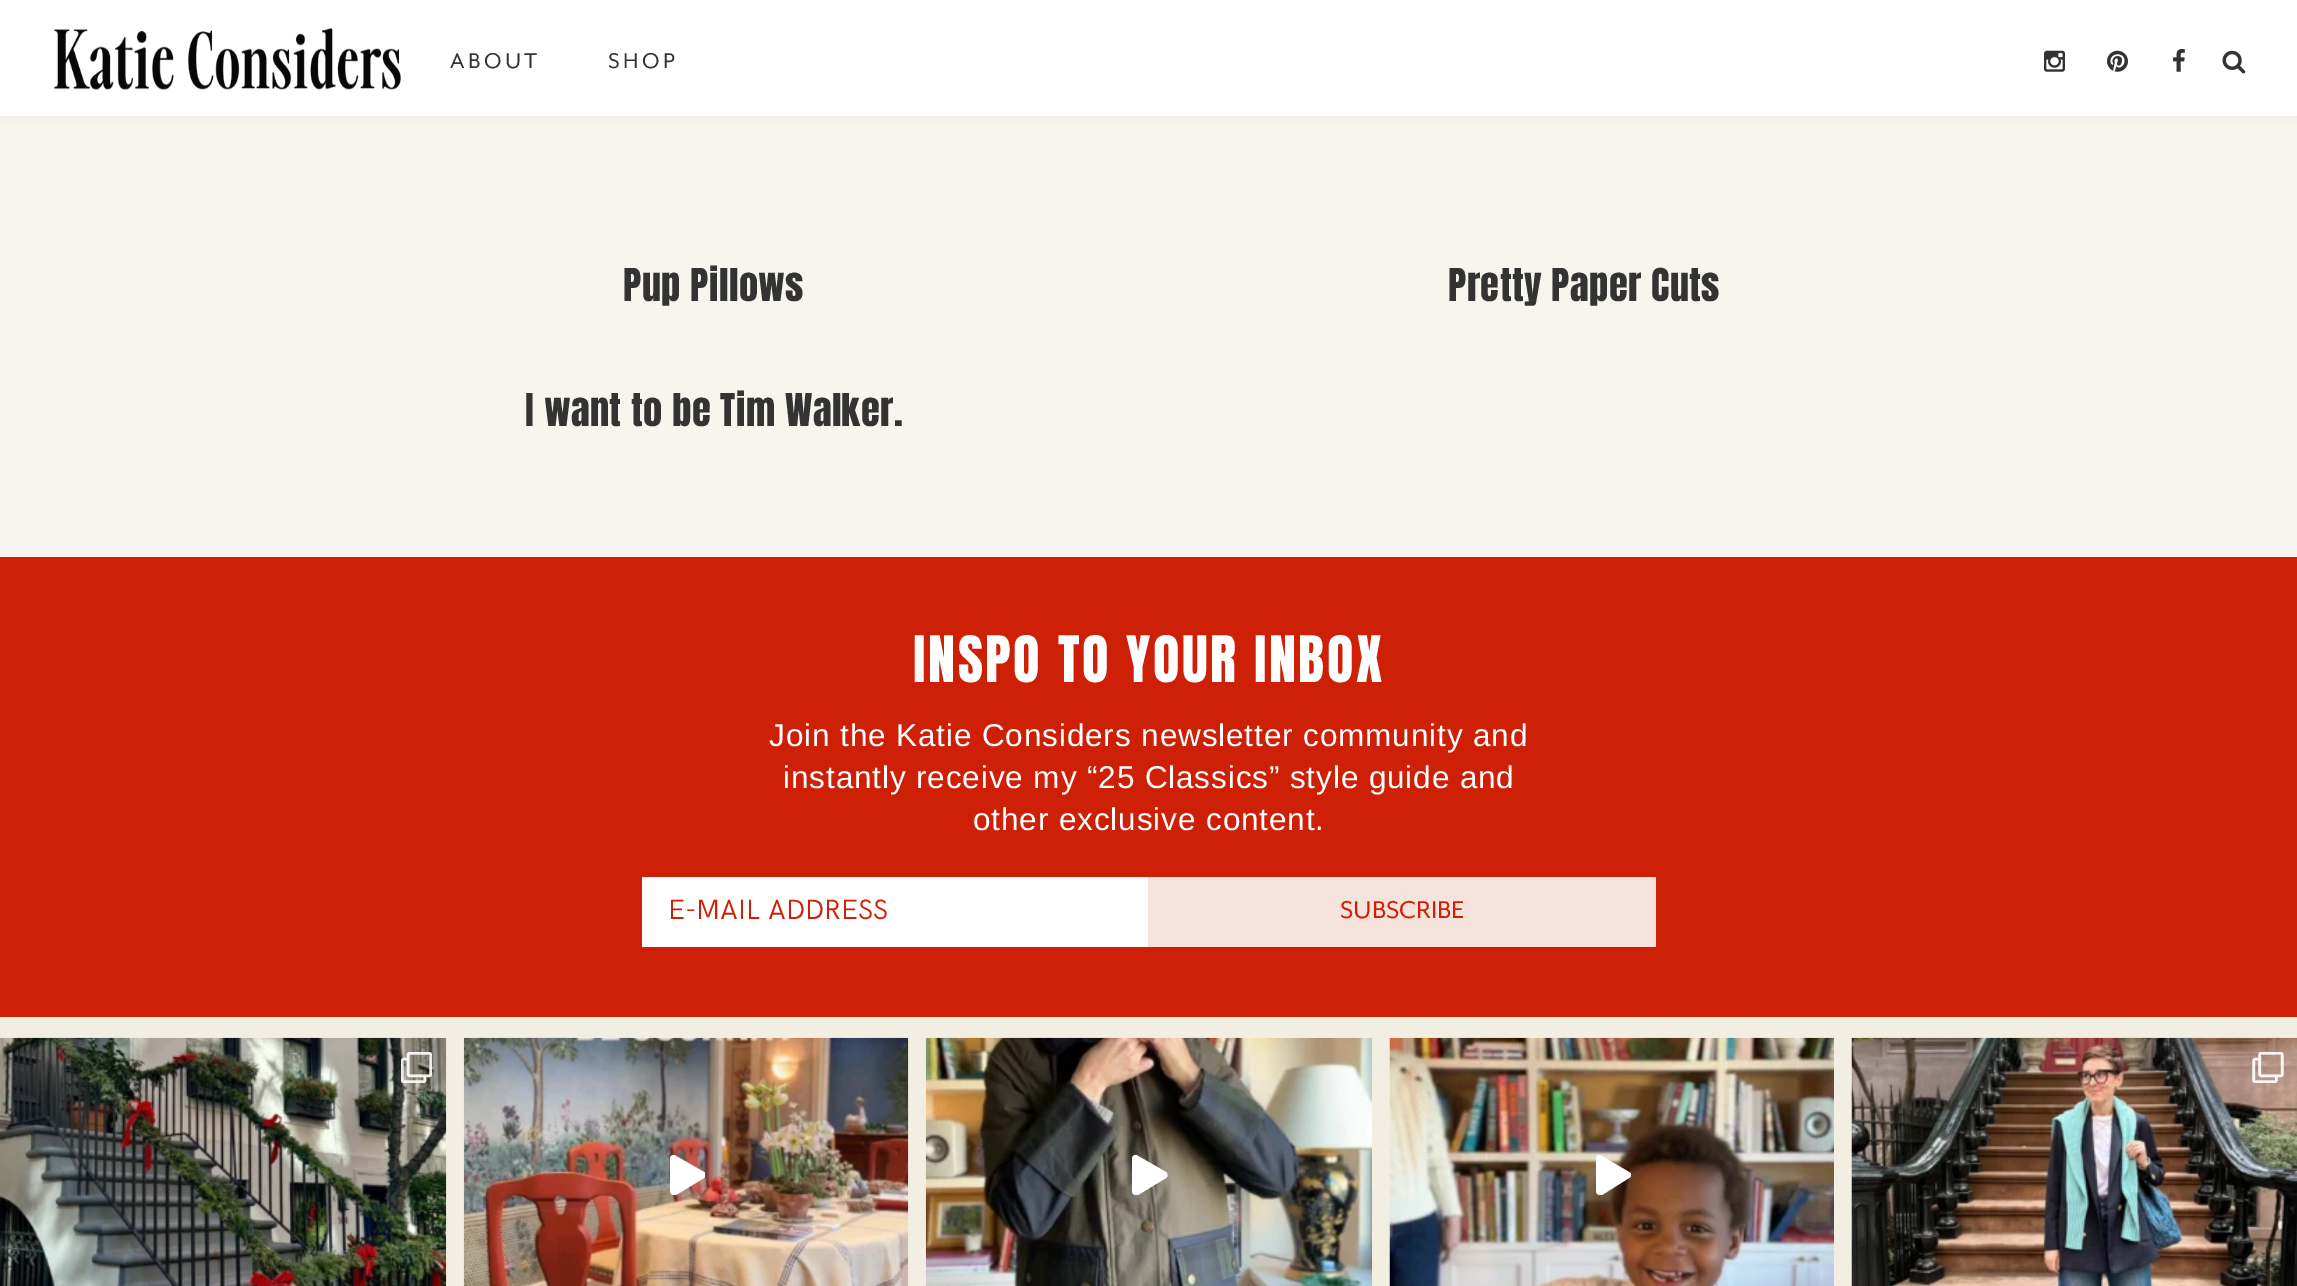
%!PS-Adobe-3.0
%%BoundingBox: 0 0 2297 1286
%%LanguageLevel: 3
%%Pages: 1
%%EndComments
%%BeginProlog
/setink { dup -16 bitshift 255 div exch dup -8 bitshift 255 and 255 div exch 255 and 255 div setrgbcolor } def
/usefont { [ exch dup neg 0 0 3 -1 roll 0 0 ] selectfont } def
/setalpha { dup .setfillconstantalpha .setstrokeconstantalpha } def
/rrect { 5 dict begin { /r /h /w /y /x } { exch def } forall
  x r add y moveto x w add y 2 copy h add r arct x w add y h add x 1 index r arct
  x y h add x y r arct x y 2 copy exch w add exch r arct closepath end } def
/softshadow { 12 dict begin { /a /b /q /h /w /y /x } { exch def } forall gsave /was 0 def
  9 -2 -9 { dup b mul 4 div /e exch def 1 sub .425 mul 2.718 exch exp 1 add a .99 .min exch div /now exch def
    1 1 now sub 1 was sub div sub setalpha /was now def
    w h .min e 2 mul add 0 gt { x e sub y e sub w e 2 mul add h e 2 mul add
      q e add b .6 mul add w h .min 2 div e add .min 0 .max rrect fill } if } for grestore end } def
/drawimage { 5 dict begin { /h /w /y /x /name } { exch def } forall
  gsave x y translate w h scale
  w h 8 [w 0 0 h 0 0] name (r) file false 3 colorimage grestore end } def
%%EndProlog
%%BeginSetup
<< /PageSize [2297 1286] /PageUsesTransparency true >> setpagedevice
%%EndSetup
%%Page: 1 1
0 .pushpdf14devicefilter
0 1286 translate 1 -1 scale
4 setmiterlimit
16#F8F5EE setink
0 0 2297 1286 rectfill
16#000000 setink
0 2 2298 115 0 4.5 0.05 softshadow
16#FFFFFF setink
0 0 2297 116 rectfill
(img1.raw) 54 28 347 62 drawimage
/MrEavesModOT-Regular 24.5 usefont
16#333333 setink
450 68 moveto 3.5 0 (ABOUT) ashow
608 68 moveto 3.5 0 (SHOP) ashow
(img2.raw) 2044 50 21 22 drawimage
(img3.raw) 2107 50 21 22 drawimage
(img4.raw) 2173 49 12 23 drawimage
(img5.raw) 2222 50 24 24 drawimage
/Anton-Regular 38.5 usefont
623 301 moveto 0.4 0 (Pup Pillows) ashow
1448 301 moveto 0.4 0 (Pretty Paper Cuts) ashow
525 426 moveto 0.4 0 (I want to be Tim Walker.) ashow
16#CD2006 setink
0 557 2297 460 rectfill
/Anton-Regular 54.25 usefont
16#FFFFFF setink
913 682 moveto 2.6 0 (INSPO TO YOUR INBOX) ashow
/LiberationSans-Regular 31.5 usefont
769 746 moveto 0.88 0 (Join the Katie Considers newsletter community and) ashow
783 788 moveto 0.88 0 (instantly receive my “25 Classics” style guide and) ashow
973 830 moveto 0.88 0 (other exclusive content.) ashow
642 877 506 70 rectfill
/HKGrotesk-Regular 28 usefont
16#CD2007 setink
668 919 moveto (E-MAIL ADDRESS) show
16#F6E3DC setink
1148 877 508 70 rectfill
/MrEavesModOT-Regular 28 usefont
16#CD2007 setink
1340 918 moveto (SUBSCRIBE) show
16#F2EEE2 setink
0 1017 2297 269 rectfill
(img6.raw) 0 1037 447 249 drawimage
(img7.raw) 401 1052 31 31 drawimage
(img8.raw) 463 1037 446 249 drawimage
gsave
670 1155 35 40 rectclip
16#FFFFFF setink
704 1172 moveto 676 1156 lineto 674 1154 670 1155 670 1159 curveto 670 1191 lineto 670 1194 673 1196 676 1195 curveto 704 1178 lineto 706 1177 706 1173 704 1172 curveto closepath fill
grestore
(img9.raw) 925 1037 447 249 drawimage
gsave
1132 1155 37 40 rectclip
16#FFFFFF setink
1166 1172 moveto 1138 1156 lineto 1136 1154 1132 1155 1132 1159 curveto 1132 1191 lineto 1132 1194 1135 1196 1138 1195 curveto 1166 1178 lineto 1168 1177 1168 1173 1166 1172 curveto closepath fill
grestore
(img10.raw) 1389 1037 445 249 drawimage
gsave
1596 1155 35 40 rectclip
16#FFFFFF setink
1629 1172 moveto 1602 1156 lineto 1599 1154 1596 1155 1596 1159 curveto 1596 1191 lineto 1596 1194 1599 1196 1602 1195 curveto 1629 1178 lineto 1632 1177 1632 1173 1629 1172 curveto closepath fill
grestore
(img11.raw) 1851 1037 446 249 drawimage
(img12.raw) 2252 1052 32 31 drawimage
.poppdf14devicefilter showpage
%%EOF
